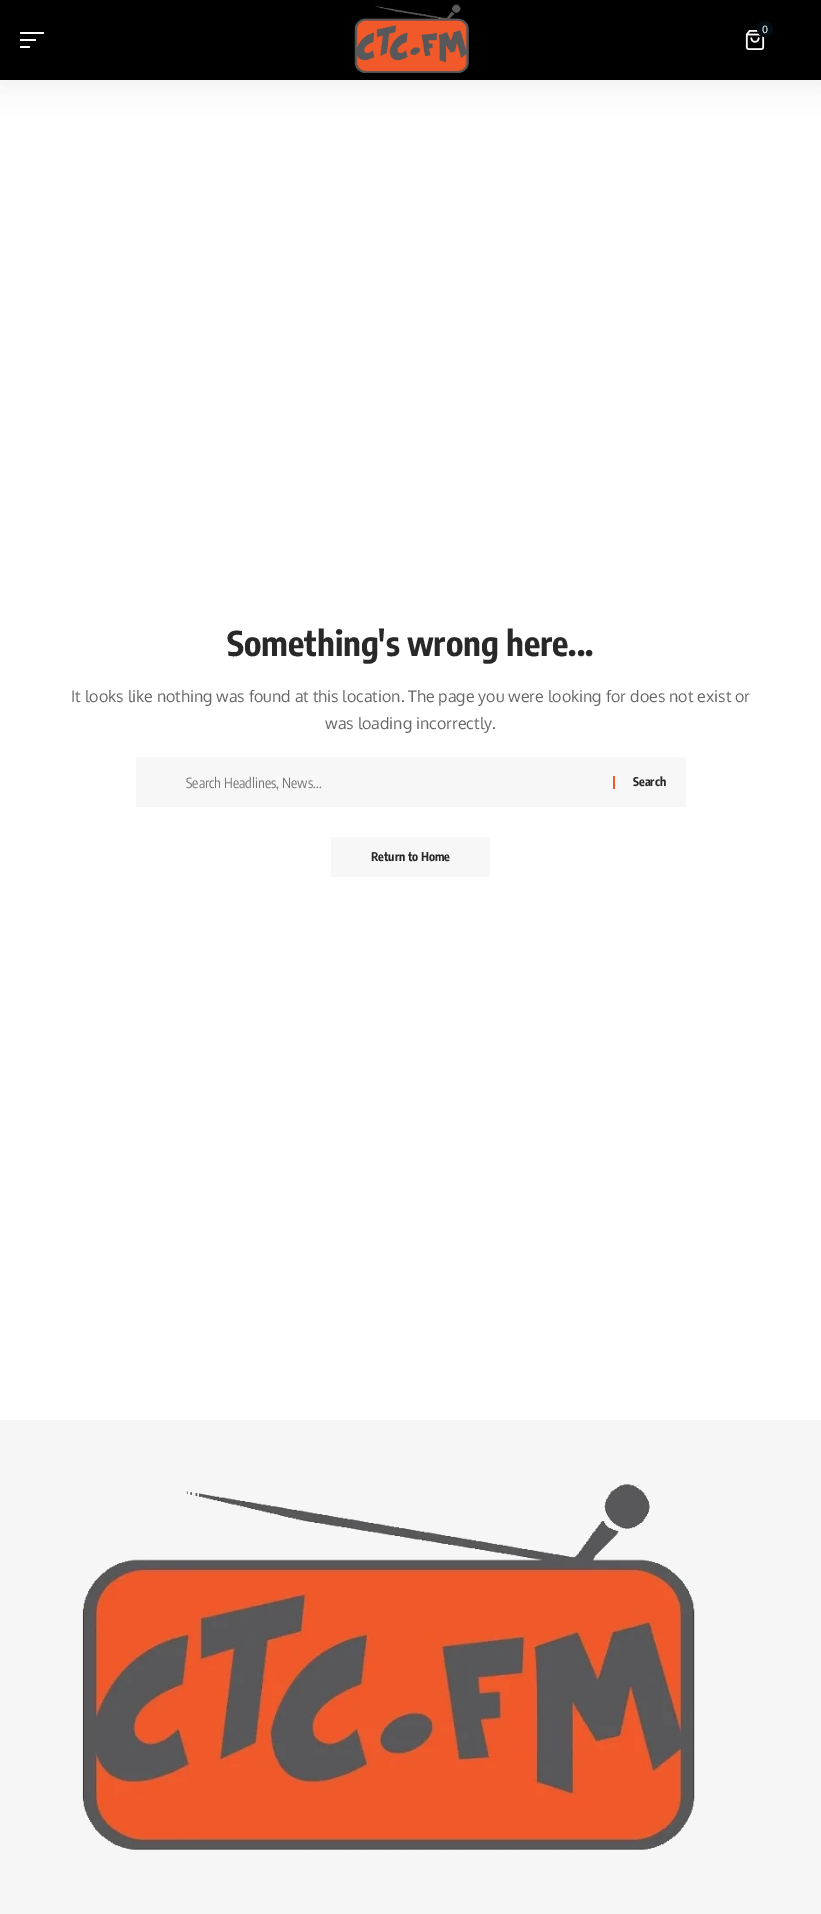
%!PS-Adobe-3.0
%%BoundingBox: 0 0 821 1914
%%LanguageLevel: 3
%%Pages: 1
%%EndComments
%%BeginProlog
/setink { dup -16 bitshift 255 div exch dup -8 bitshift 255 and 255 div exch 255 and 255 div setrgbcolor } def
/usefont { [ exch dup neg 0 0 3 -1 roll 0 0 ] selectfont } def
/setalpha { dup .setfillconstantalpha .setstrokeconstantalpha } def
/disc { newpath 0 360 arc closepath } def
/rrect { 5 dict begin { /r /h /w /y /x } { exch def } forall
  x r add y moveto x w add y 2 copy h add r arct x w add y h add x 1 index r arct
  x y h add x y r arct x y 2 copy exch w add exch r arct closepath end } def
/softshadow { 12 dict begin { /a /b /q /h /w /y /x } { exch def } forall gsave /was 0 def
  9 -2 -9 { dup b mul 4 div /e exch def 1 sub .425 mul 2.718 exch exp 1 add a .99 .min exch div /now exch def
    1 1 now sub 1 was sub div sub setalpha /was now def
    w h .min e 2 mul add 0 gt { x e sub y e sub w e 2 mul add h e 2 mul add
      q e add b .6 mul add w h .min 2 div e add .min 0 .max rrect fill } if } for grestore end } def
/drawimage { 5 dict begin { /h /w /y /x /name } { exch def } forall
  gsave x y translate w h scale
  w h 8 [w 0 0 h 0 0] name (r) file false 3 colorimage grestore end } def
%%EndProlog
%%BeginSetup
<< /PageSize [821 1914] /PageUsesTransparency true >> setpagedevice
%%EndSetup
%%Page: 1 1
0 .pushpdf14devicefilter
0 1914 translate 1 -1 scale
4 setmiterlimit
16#FFFFFF setink
0 0 821 1914 rectfill
16#000000 setink
0 4 821 80 0 15 0.07 softshadow
0 0 821 80 rectfill
(img1.raw) 354 4 115 69 drawimage
(img2.raw) 745 30 20 20 drawimage
16#030E14 setink
765 29 8 disc fill
/Oxygen-Regular 10 usefont
16#FFFFFF setink
762 33 moveto (0) show
20 32 24 2 1 rrect fill
20 39 16 2 1 rrect fill
20 46 10 2 1 rrect fill
/EncodeSansCondensed-Bold 34 usefont
16#282828 setink
227 656 moveto (Something's wrong here...) show
/Oxygen-Regular 16 usefont
16#666666 setink
71 702 moveto (It looks like nothing was found at this location. The page you were looking for does not exist or) show
325 729 moveto (was loading incorrectly.) show
16#F7F7F7 setink
136 757 550 50 rectfill
/EncodeSansCondensed-Regular 14 usefont
16#757575 setink
186 788 moveto (Search Headlines, News...) show
16#F0592A setink
613 776 2 13 rectfill
/EncodeSansCondensed-Bold 12 usefont
16#282828 setink
633 786 moveto (Search) show
16#F7F7F7 setink
331 837 159 40 rectfill
16#282828 setink
371 861 moveto (Return to Home) show
16#F6F6F6 setink
0 1420 821 494 rectfill
(img3.raw) 82 1484 613 366 drawimage
.poppdf14devicefilter showpage
%%EOF
